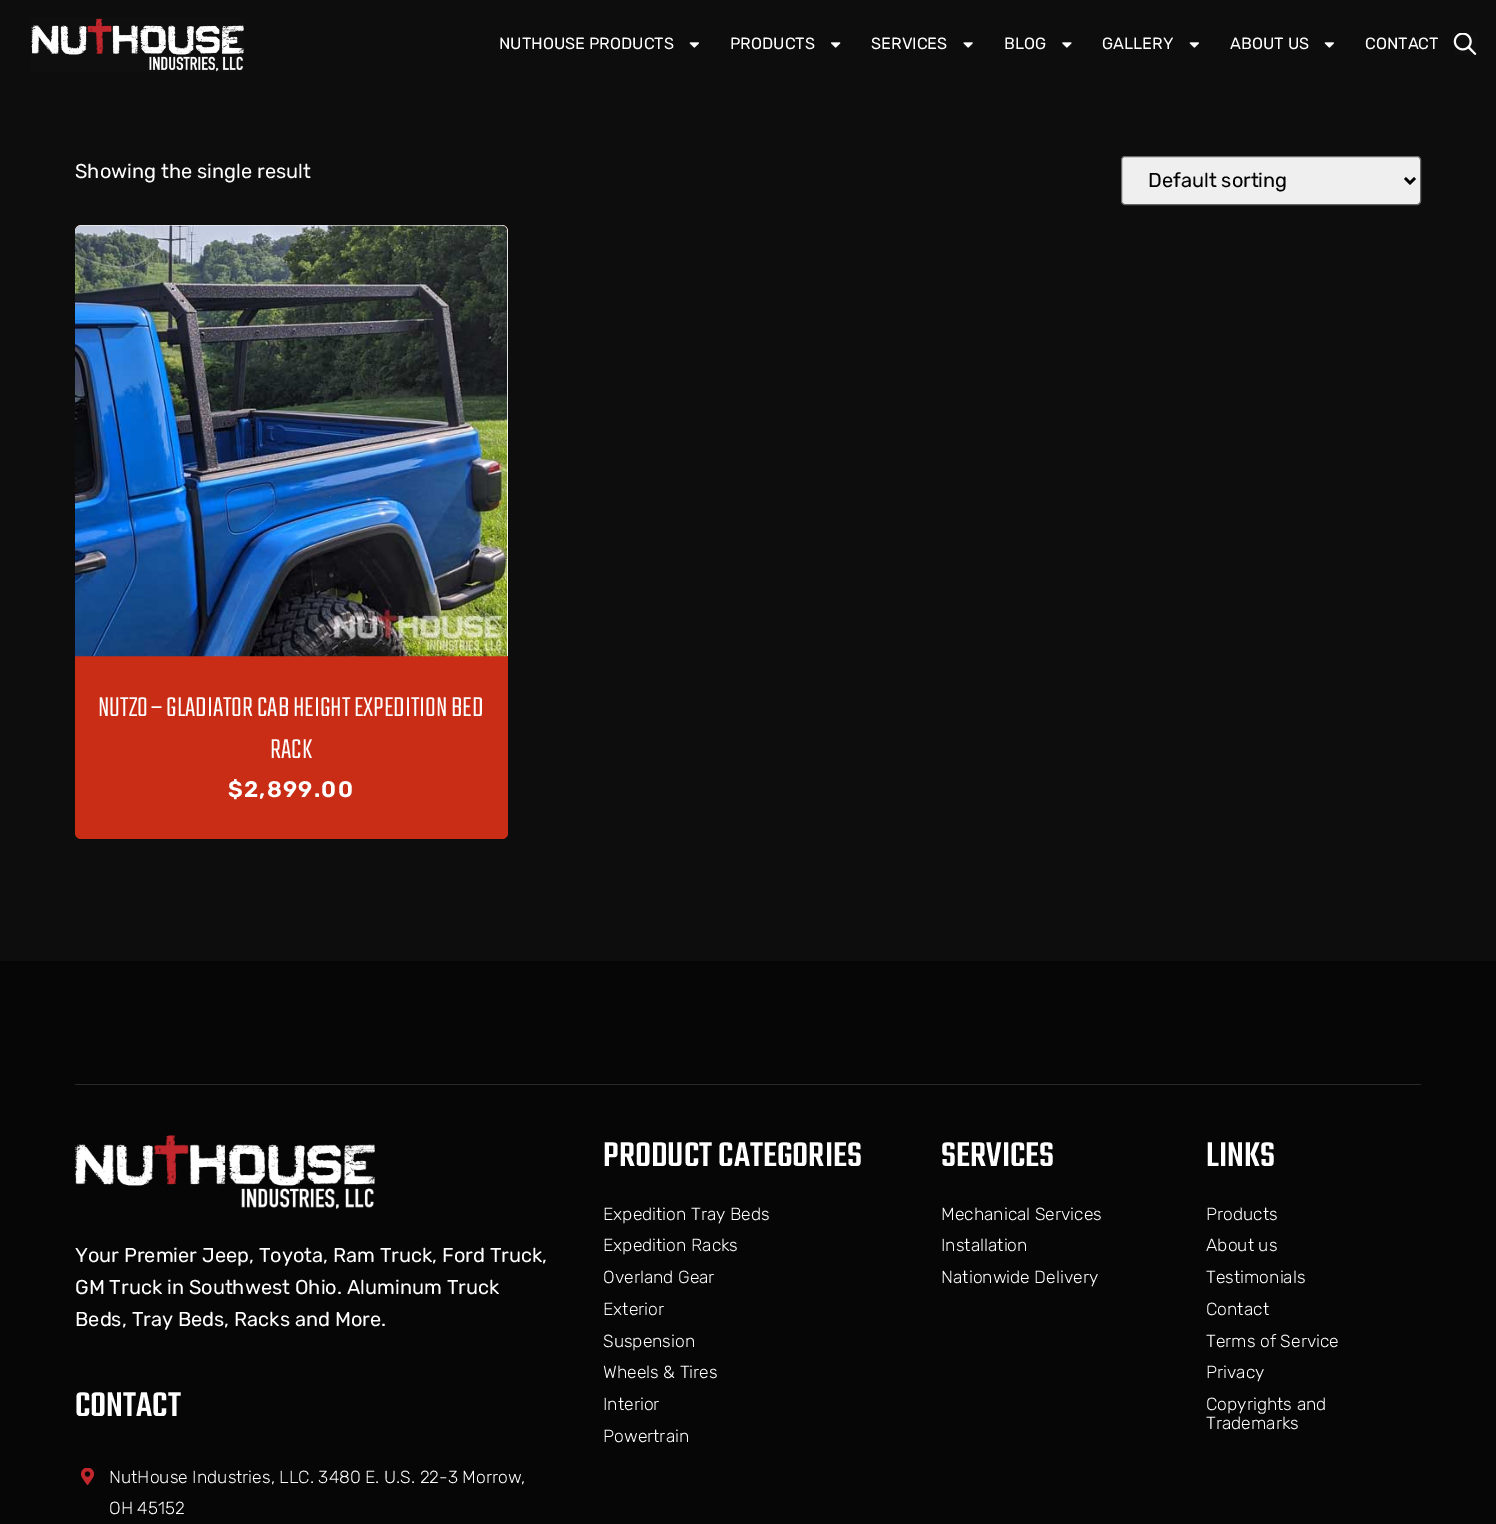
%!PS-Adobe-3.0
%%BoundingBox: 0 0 1496 1524
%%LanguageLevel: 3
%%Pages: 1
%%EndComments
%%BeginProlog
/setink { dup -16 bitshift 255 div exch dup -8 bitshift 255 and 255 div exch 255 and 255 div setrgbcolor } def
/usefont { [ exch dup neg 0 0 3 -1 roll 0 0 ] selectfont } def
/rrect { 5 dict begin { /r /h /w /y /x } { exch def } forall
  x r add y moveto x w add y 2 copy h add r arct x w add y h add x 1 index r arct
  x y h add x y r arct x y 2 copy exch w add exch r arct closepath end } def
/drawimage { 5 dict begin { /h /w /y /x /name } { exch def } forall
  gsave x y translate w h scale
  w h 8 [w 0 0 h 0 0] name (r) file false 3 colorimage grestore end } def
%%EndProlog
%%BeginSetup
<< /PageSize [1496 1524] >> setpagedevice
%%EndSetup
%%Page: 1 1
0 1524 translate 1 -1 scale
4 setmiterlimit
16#0D0D0D setink
0 0 1496 1524 rectfill
(img1.raw) 31 18 213 54 drawimage
/Rubik-Regular 16.25 usefont
16#FFFFFF setink
499 49 moveto (NUTHOUSE PRODUCTS) show
(img2.raw) 689 42 10 6 drawimage
730 49 moveto (PRODUCTS) show
(img3.raw) 831 42 10 6 drawimage
871 49 moveto (SERVICES) show
(img4.raw) 963 42 10 6 drawimage
1004 49 moveto (BLOG) show
(img5.raw) 1062 42 10 6 drawimage
1102 49 moveto (GALLERY) show
(img2.raw) 1189 42 10 6 drawimage
1230 49 moveto (ABOUT US) show
(img2.raw) 1324 42 10 6 drawimage
1365 49 moveto (CONTACT) show
(img6.raw) 1453 33 24 22 drawimage
/Rubik-Regular 20 usefont
75 178 moveto (Showing the single result) show
16#EFEFEF setink
1121.5 156.5 299 48 3.5 rrect gsave fill grestore
16#666666 setink
stroke
16#000000 setink
2.5 setlinewidth
1405 178 moveto 1410 183 lineto 1415 178 lineto stroke
1148 187 moveto (Default sorting) show
16#C92D15 setink
75 225 433 614 6 rrect fill
16#FFFFFF setink
81 225 moveto 502 225 lineto 505.5 225 508 227.5 508 231 curveto 508 656 lineto 75 656 lineto 75 231 lineto 75 227.5 77.5 225 81 225 curveto closepath fill
(img7.raw) 75 225 433 432 drawimage
/Teko-Light 30 usefont
98 716 moveto (NUTZO – GLADIATOR CAB HEIGHT EXPEDITION BED) show
270 758 moveto (RACK) show
/Rubik-SemiBold 22.5 usefont
228 797 moveto 1.25 0 ($2,899.00) ashow
16#060606 setink
0 961 1496 563 rectfill
16#292929 setink
75 1084 1346 1 rectfill
(img8.raw) 75 1135 300 74 drawimage
/Rubik-Regular 20 usefont
16#FFFFFF setink
[
    [(Your Premier Jeep, Toyota, Ram Truck, Ford Truck,) 75 1262]
    [(GM Truck in Southwest Ohio. Aluminum Truck) 75 1294]
    [(Beds, Tray Beds, Racks and More.) 75 1326]
] { aload pop moveto show } forall
/Teko-Medium 37.5 usefont
75 1416 moveto (CONTACT) show
(img9.raw) 81 1468 13 17 drawimage
/Rubik-Light 17.5 usefont
109 1483 moveto (NutHouse Industries, LLC. 3480 E. U.S. 22-3 Morrow,) show
109 1514 moveto (OH 45152) show
/Teko-Medium 37.5 usefont
603 1166 moveto (PRODUCT CATEGORIES) show
/Rubik-Light 17.5 usefont
[
    [(Expedition Tray Beds) 603 1220]
    [(Expedition Racks) 603 1251]
    [(Overland Gear) 603 1283]
    [(Exterior) 603 1315]
    [(Suspension) 603 1347]
    [(Wheels & Tires) 603 1378]
    [(Interior) 603 1410]
    [(Powertrain) 603 1442]
] { aload pop moveto show } forall
/Teko-Medium 37.5 usefont
941 1166 moveto (SERVICES) show
/Rubik-Light 17.5 usefont
[
    [(Mechanical Services) 941 1220]
    [(Installation) 941 1251]
    [(Nationwide Delivery) 941 1283]
] { aload pop moveto show } forall
/Teko-Medium 37.5 usefont
1206 1166 moveto (LINKS) show
/Rubik-Light 17.5 usefont
[
    [(Products) 1206 1220]
    [(About us) 1206 1251]
    [(Testimonials) 1206 1283]
    [(Contact) 1206 1315]
    [(Terms of Service) 1206 1347]
    [(Privacy) 1206 1378]
    [(Copyrights and) 1206 1410]
    [(Trademarks) 1206 1429]
] { aload pop moveto show } forall
showpage
%%EOF
